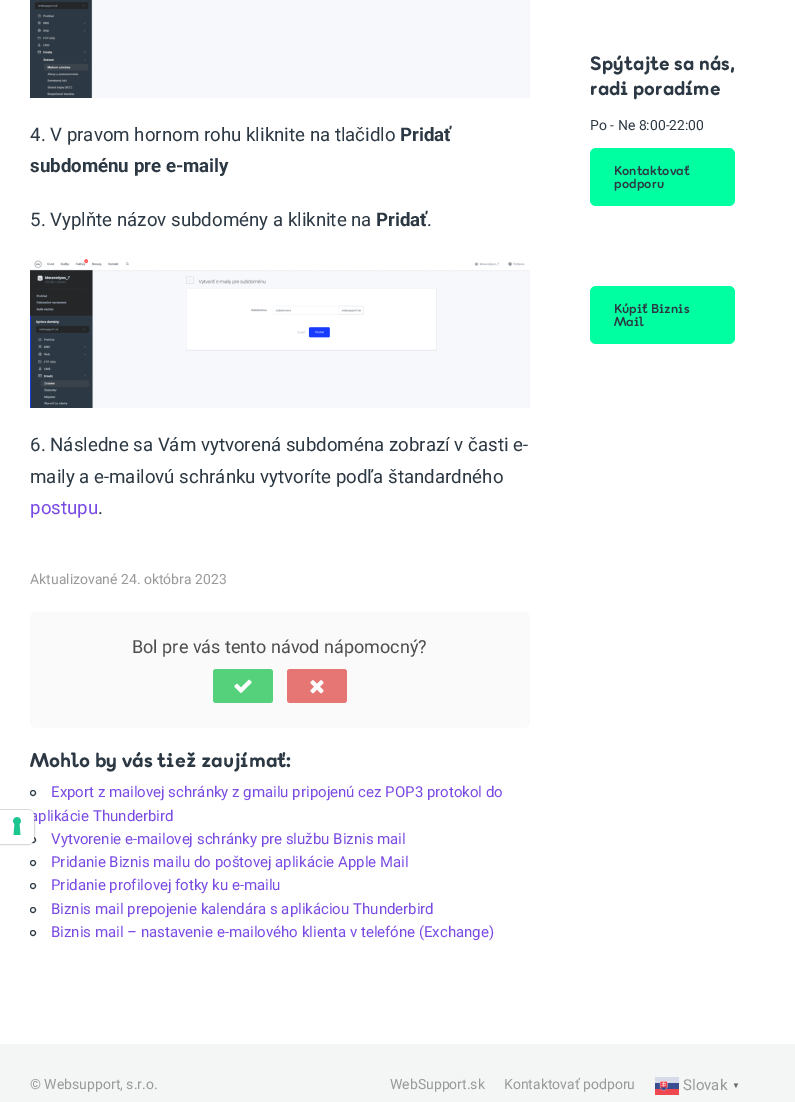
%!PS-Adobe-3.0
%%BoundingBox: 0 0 795 1102
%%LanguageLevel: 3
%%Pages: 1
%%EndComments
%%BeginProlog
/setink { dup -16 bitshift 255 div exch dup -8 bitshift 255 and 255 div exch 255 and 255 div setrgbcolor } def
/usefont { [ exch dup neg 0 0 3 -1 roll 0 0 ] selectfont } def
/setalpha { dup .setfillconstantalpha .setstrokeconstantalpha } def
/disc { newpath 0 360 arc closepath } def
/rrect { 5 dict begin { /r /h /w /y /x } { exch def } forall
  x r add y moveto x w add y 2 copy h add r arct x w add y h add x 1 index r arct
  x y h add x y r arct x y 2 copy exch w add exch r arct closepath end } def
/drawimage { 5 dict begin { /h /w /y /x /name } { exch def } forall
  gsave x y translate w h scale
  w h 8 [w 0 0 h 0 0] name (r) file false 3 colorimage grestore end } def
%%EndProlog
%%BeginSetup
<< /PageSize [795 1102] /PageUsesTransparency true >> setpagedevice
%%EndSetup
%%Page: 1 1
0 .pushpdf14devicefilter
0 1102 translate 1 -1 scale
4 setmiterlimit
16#FFFFFF setink
0 0 795 1102 rectfill
/Roboto-Regular 15 usefont
16#7A4BE3 setink
30 821 moveto (aplikácie Thunderbird) show
16#2C3843 setink
33 840 2.5 disc stroke
0.15 setalpha
16#000000 setink
-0.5 809.5 moveto 28 809.5 lineto 31.5 809.5 34.5 812.5 34.5 816 curveto 34.5 838 lineto 34.5 841.5 31.5 844.5 28 844.5 curveto -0.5 844.5 lineto closepath stroke
1 setalpha
16#FFFFFF setink
0 810 moveto 28 810 lineto 31.5 810 34 812.5 34 816 curveto 34 838 lineto 34 841.5 31.5 844 28 844 curveto 0 844 lineto closepath fill
(img1.raw) 13 817 8 18 drawimage
(img2.raw) 30 0 500 98 drawimage
/Roboto-Regular 18.7 usefont
16#2C3843 setink
30 141 moveto (4. V pravom hornom rohu kliknite na tlačidlo) show
/Roboto-Bold 18.7 usefont
400 141 moveto (Pridať) show
30 172 moveto (subdoménu pre e-maily) show
/Roboto-Regular 18.7 usefont
30 226 moveto (5. Vyplňte názov subdomény a kliknite na) show
/Roboto-Bold 18.7 usefont
376 226 moveto (Pridať) show
/Roboto-Regular 18.7 usefont
427 226 moveto (.) show
(img3.raw) 30 258 500 150 drawimage
30 451 moveto (6. Následne sa Vám vytvorená subdoména zobrazí v časti e-) show
30 483 moveto (maily a e-mailovú schránku vytvoríte podľa štandardného) show
16#7A4BE3 setink
30 514 moveto (postupu) show
16#2C3843 setink
98 514 moveto (.) show
/Roboto-Regular 14 usefont
16#999999 setink
30 584 moveto (Aktualizované 24. októbra 2023) show
16#FAFAFA setink
30 612 500 116 6 rrect fill
/Roboto-Regular 18 usefont
16#4D4D4D setink
132 653 moveto (Bol pre vás tento návod nápomocný?) show
16#55D17C setink
213 669 60 34 3 rrect fill
(img4.raw) 234 679 18 14 drawimage
16#E57673 setink
287 669 60 34 3 rrect fill
(img5.raw) 310 680 14 14 drawimage
/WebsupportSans-ExtraBold 20 usefont
16#2C3843 setink
30 767 moveto (Mohlo by vás tiež zaujímať:) show
33 793 2.5 disc stroke
/Roboto-Regular 15 usefont
16#7A4BE3 setink
51 797 moveto (Export z mailovej schránky z gmailu pripojenú cez POP3 protokol do) show
51 844 moveto (Vytvorenie e-mailovej schránky pre službu Biznis mail) show
16#2C3843 setink
33 863 2.5 disc stroke
16#7A4BE3 setink
51 867 moveto (Pridanie Biznis mailu do poštovej aplikácie Apple Mail) show
16#2C3843 setink
33 886 2.5 disc stroke
16#7A4BE3 setink
51 890 moveto (Pridanie profilovej fotky ku e-mailu) show
16#2C3843 setink
33 910 2.5 disc stroke
16#7A4BE3 setink
51 914 moveto (Biznis mail prepojenie kalendára s aplikáciou Thunderbird) show
16#2C3843 setink
33 933 2.5 disc stroke
16#7A4BE3 setink
51 937 moveto (Biznis mail – nastavenie e-mailového klienta v telefóne \(Exchange\)) show
/WebsupportSans-ExtraBold 19.5 usefont
16#2C3843 setink
590 70 moveto (Spýtajte sa nás,) show
590 95 moveto (radi poradíme) show
/Roboto-Regular 14 usefont
590 130 moveto (Po - Ne 8:00-22:00) show
16#00FFA0 setink
590 148 145 58 6 rrect fill
/WebsupportSans-Bold 13 usefont
16#2C3843 setink
614 175 moveto (Kontaktovať) show
614 188 moveto (podporu) show
16#00FFA0 setink
590 286 145 58 6 rrect fill
16#2C3843 setink
614 313 moveto (Kúpiť Biznis) show
614 326 moveto (Mail) show
16#F4F5F5 setink
0 1044 795 58 rectfill
/Roboto-Regular 14 usefont
16#999999 setink
[
    [(© Websupport, s.r.o.) 30 1089]
    [(WebSupport.sk) 390 1089]
    [(Kontaktovať podporu) 504 1089]
] { aload pop moveto show } forall
(img6.raw) 655 1077 24 18 drawimage
/Roboto-Regular 15 usefont
683 1090 moveto (Slovak) show
/LiberationSans-Bold 8 usefont
16#666666 setink
732 1088 moveto (▼) show
.poppdf14devicefilter showpage
%%EOF
